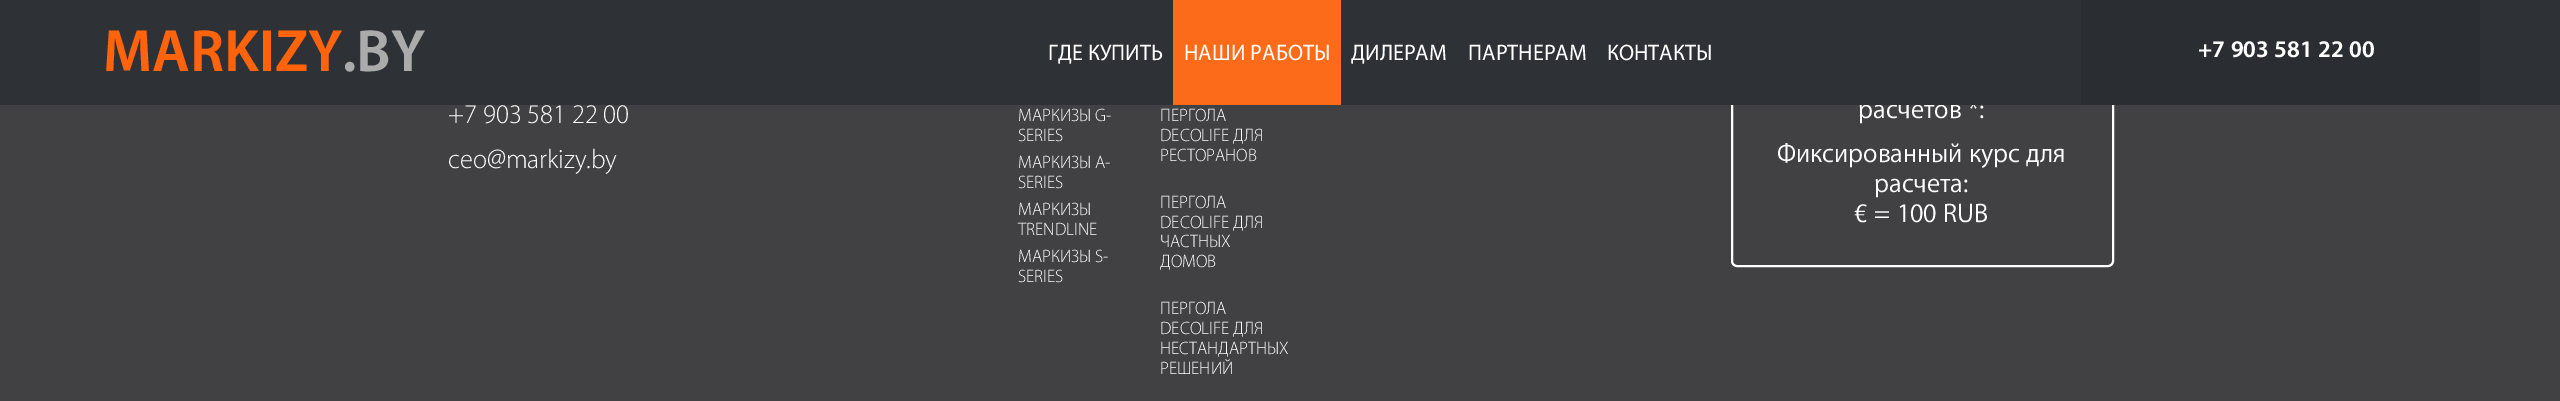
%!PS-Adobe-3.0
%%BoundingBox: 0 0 2560 401
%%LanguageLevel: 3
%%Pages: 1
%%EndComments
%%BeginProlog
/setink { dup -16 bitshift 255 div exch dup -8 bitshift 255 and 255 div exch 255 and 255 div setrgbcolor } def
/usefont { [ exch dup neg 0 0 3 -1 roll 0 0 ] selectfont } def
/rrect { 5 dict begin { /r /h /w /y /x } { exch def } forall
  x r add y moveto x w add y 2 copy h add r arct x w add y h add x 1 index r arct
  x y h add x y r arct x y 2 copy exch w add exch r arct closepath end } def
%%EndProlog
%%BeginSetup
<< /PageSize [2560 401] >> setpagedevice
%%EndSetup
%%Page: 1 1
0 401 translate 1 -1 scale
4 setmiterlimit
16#414042 setink
0 0 2560 401 rectfill
16#FFFFFF setink
2 setlinewidth
1732 42 381 224 5 rrect stroke
/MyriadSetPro-Regular 27 usefont
1858 118 moveto (расчетов *:) show
16#2E3237 setink
0 0 2560 105 rectfill
/MyriadSetPro-Bold 60 usefont
16#FF630B setink
103 71 moveto (MARKIZY) show
16#ABABAB setink
342 71 moveto (.BY) show
/MyriadSetPro-Medium 22.5 usefont
16#FFFFFF setink
1048 60 moveto (ГДЕ КУПИТЬ) show
16#FC6B19 setink
1173 0 168 105 rectfill
16#FFFFFF setink
[
    [(НАШИ РАБОТЫ) 1184 60]
    [(ДИЛЕРАМ) 1351 60]
    [(ПАРТНЕРАМ) 1468 60]
    [(КОНТАКТЫ) 1607 60]
] { aload pop moveto show } forall
16#2A2E32 setink
2081 0 399 105 rectfill
/MyriadSetPro-Bold 24 usefont
16#FFFFFF setink
2198 57 moveto (+7 903 581 22 00) show
/MyriadSetPro-Thin 27 usefont
448 123 moveto (+7 903 581 22 00) show
448 168 moveto (ceo@markizy.by) show
/MyriadSetPro-Thin 18 usefont
[
    [(МАРКИЗЫ G-) 1018 121]
    [(SERIES) 1018 141]
    [(МАРКИЗЫ A-) 1018 168]
    [(SERIES) 1018 188]
    [(МАРКИЗЫ) 1018 215]
    [(TRENDLINE) 1018 235]
    [(МАРКИЗЫ S-) 1018 262]
    [(SERIES) 1018 282]
    [(ПЕРГОЛА) 1160 121]
    [(DECOLIFE ДЛЯ) 1160 141]
    [(РЕСТОРАНОВ) 1160 161]
    [(ПЕРГОЛА) 1160 208]
    [(DECOLIFE ДЛЯ) 1160 228]
    [(ЧАСТНЫХ) 1160 247]
    [(ДОМОВ) 1160 267]
    [(ПЕРГОЛА) 1160 314]
    [(DECOLIFE ДЛЯ) 1160 334]
    [(НЕСТАНДАРТНЫХ) 1160 354]
    [(РЕШЕНИЙ) 1160 374]
] { aload pop moveto show } forall
/MyriadSetPro-Regular 27 usefont
[
    [(Фиксированный курс для) 1777 162]
    [(расчета:) 1874 192]
    [(€ = 100 RUB) 1854 222]
] { aload pop moveto show } forall
showpage
%%EOF
